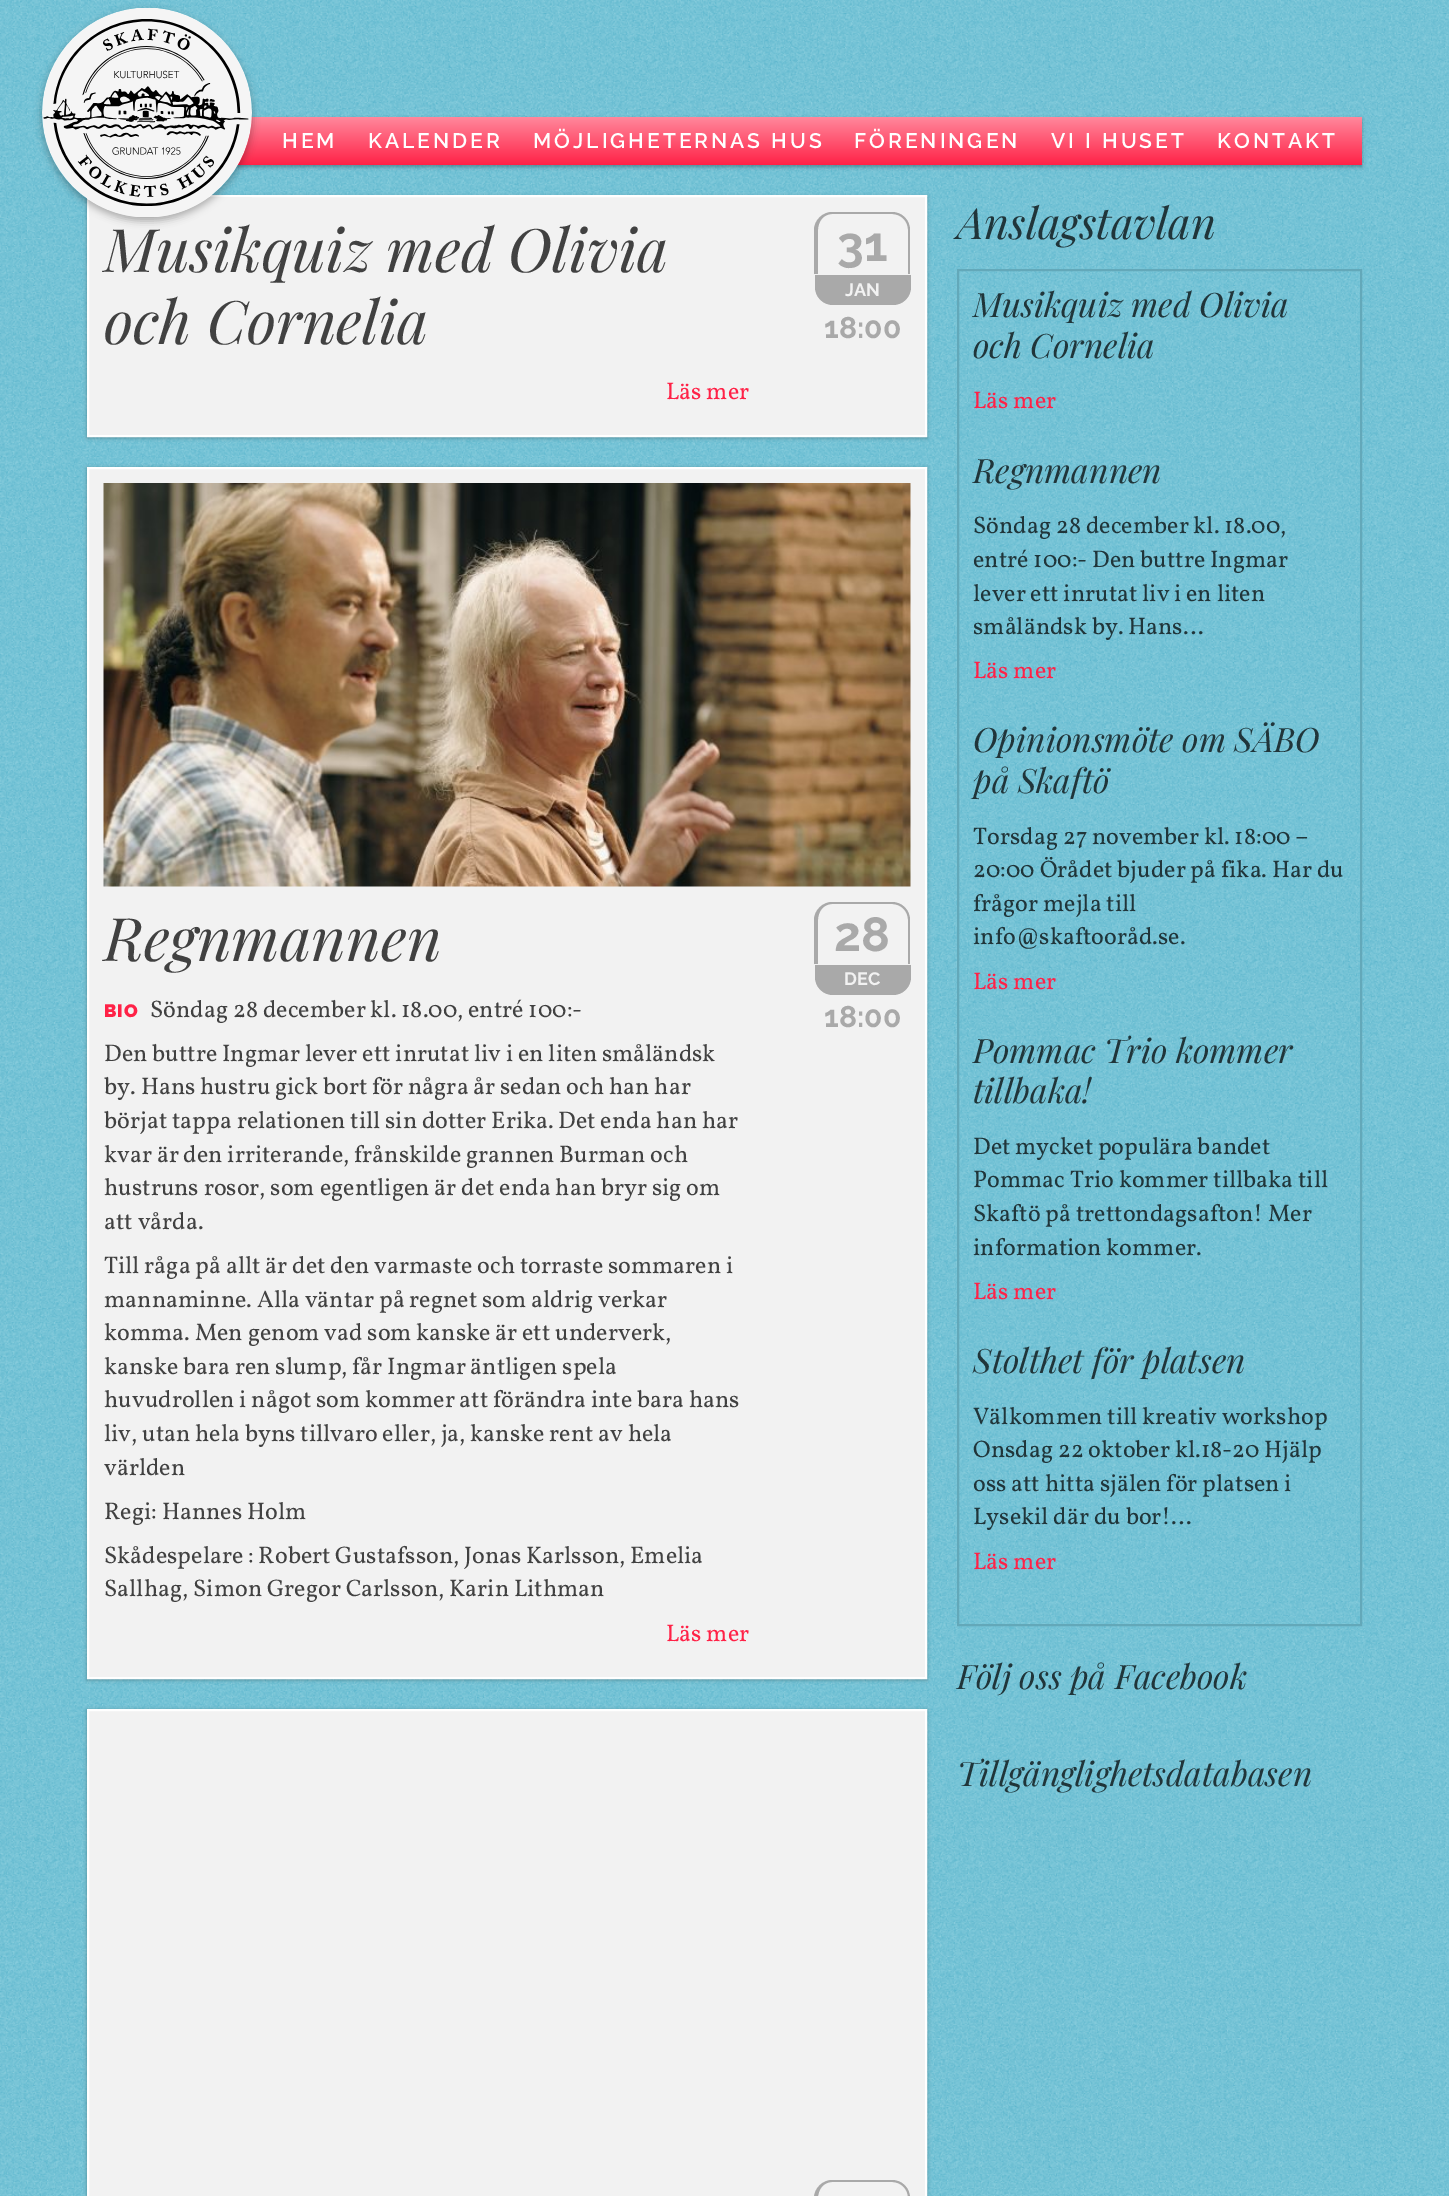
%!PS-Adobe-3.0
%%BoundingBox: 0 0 1449 2196
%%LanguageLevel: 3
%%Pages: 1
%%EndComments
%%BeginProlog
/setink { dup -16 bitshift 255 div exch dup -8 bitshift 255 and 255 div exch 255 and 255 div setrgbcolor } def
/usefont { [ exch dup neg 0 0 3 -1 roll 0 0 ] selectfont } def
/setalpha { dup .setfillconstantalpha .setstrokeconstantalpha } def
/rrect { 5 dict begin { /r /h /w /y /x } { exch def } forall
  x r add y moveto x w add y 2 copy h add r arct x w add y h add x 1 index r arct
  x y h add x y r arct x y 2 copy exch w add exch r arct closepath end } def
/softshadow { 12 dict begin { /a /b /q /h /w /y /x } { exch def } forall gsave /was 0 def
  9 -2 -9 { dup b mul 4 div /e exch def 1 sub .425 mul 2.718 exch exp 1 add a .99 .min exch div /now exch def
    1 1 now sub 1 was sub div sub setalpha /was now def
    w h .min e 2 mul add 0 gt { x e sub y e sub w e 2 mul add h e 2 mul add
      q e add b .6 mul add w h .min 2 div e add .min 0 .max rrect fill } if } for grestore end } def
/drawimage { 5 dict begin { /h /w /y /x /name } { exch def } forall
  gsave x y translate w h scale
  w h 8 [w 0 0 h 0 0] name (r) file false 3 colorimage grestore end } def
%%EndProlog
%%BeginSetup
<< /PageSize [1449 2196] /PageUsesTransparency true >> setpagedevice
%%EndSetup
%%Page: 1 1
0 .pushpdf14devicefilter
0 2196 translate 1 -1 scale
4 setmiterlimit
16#FFFFFF setink
0 0 1449 2196 rectfill
(img1.raw) 0 0 1449 2196 drawimage
16#000000 setink
87 119 1275 48 0 2 0.3 softshadow
gsave 237 117 moveto 1362 117 lineto 1362 165 lineto 237 165 lineto closepath clip newpath
<< /ShadingType 2 /ColorSpace /DeviceRGB /Coords [725 117 725 165] /Extend [true true] /Function << /FunctionType 2 /Domain [0 1] /C0 [1 0.533 0.612] /C1 [1 0.133 0.278] /N 1 >> >> shfill grestore
87 197 840 241 0 2 0.3 softshadow
16#F2F2F2 setink
88 196 moveto 926 196 lineto 926 436 lineto 88 436 lineto closepath gsave fill grestore
16#FFFFFF setink
2 setlinewidth
stroke
16#000000 setink
42 11 210 210 105 4 0.3 softshadow
(img2.raw) 42 8 210 209 drawimage
/Raleway-SemiBold 21 usefont
16#FFFFFF setink
282 148 moveto 3 0 (HEM) ashow
368 148 moveto 3 0 (KALENDER) ashow
533 148 moveto 3 0 (MÖJLIGHETERNAS HUS) ashow
854 148 moveto 3 0 (FÖRENINGEN) ashow
1051 148 moveto 3 0 (VI I HUSET) ashow
1217 148 moveto 3 0 (KONTAKT) ashow
/PlayfairDisplay-Italic 60 usefont
16#414141 setink
104 272 moveto (Musikquiz med Olivia) show
104 344 moveto (och Cornelia) show
16#A9A9A9 setink
832 212 moveto 892 212 lineto 902 212 910 220 910 230 curveto 910 274 lineto 814 274 lineto 814 230 lineto 814 220 823 212 832 212 curveto closepath 832 214 moveto 892 214 lineto 901 214 908 221 908 230 curveto 908 274 lineto 818 274 lineto 818 230 lineto 818 221 824 214 832 214 curveto closepath eofill
/Raleway-Bold 48 usefont
837 261 moveto (31) show
815 275 moveto 911 275 lineto 911 287 lineto 911 297 903 305 893 305 curveto 833 305 lineto 823 305 815 297 815 287 curveto closepath fill
/Raleway-Bold 18 usefont
16#F2F2F2 setink
845 296 moveto (JAN) show
/Raleway-Bold 30 usefont
16#A9A9A9 setink
824 338 moveto (18:00) show
/Vollkorn-Regular 24 usefont
16#FF2247 setink
666 399 moveto (Läs mer) show
16#000000 setink
87 468 840 1212 0 2 0.3 softshadow
16#F2F2F2 setink
88 468 moveto 926 468 lineto 926 1678 lineto 88 1678 lineto closepath gsave fill grestore
16#FFFFFF setink
stroke
(img3.raw) 103 483 808 404 drawimage
/PlayfairDisplay-Italic 60 usefont
16#414141 setink
104 961 moveto (Regnmannen) show
16#A9A9A9 setink
832 902 moveto 892 902 lineto 902 902 910 910 910 920 curveto 910 964 lineto 814 964 lineto 814 920 lineto 814 910 823 902 832 902 curveto closepath 832 904 moveto 892 904 lineto 901 904 908 911 908 920 curveto 908 964 lineto 818 964 lineto 818 920 lineto 818 911 824 904 832 904 curveto closepath eofill
/Raleway-Bold 48 usefont
834 951 moveto (28) show
815 965 moveto 911 965 lineto 911 977 lineto 911 987 903 995 893 995 curveto 833 995 lineto 823 995 815 987 815 977 curveto closepath fill
/Raleway-Bold 18 usefont
16#F2F2F2 setink
844 985 moveto (DEC) show
/Raleway-Bold 30 usefont
16#A9A9A9 setink
824 1027 moveto (18:00) show
/Vollkorn-Regular 24 usefont
16#414141 setink
[
    [(Söndag 28 december kl. 18.00, entré 100:-) 150 1017]
    [(Den buttre Ingmar lever ett inrutat liv i en liten småländsk) 104 1061]
    [(by. Hans hustru gick bort för några år sedan och han har) 104 1094]
    [(börjat tappa relationen till sin dotter Erika. Det enda han har) 104 1128]
    [(kvar är den irriterande, frånskilde grannen Burman och) 104 1162]
    [(hustruns rosor, som egentligen är det enda han bryr sig om) 104 1195]
    [(att vårda.) 104 1229]
    [(Till råga på allt är det den varmaste och torraste sommaren i) 104 1273]
    [(mannaminne. Alla väntar på regnet som aldrig verkar) 104 1307]
    [(komma. Men genom vad som kanske är ett underverk,) 104 1340]
    [(kanske bara ren slump, får Ingmar äntligen spela) 104 1374]
    [(huvudrollen i något som kommer att förändra inte bara hans) 104 1407]
    [(liv, utan hela byns tillvaro eller, ja, kanske rent av hela) 104 1441]
    [(världen) 104 1475]
] { aload pop moveto show } forall
/Raleway-Black 18 usefont
16#FF2247 setink
104 1017 moveto 1 0 (BIO) ashow
/Vollkorn-Regular 24 usefont
16#414141 setink
[
    [(Regi: Hannes Holm) 104 1519]
    [(Skådespelare : Robert Gustafsson, Jonas Karlsson, Emelia) 104 1563]
    [(Sallhag, Simon Gregor Carlsson, Karin Lithman) 104 1596]
] { aload pop moveto show } forall
16#FF2247 setink
666 1641 moveto (Läs mer) show
16#000000 setink
87 1710 840 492 0 2 0.3 softshadow
16#F2F2F2 setink
88 1710 moveto 926 1710 lineto 926 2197 lineto 88 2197 lineto closepath gsave fill grestore
16#FFFFFF setink
stroke
16#A9A9A9 setink
832 2180 moveto 892 2180 lineto 902 2180 910 2188 910 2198 curveto 910 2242 lineto 814 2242 lineto 814 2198 lineto 814 2188 823 2180 832 2180 curveto closepath 832 2182 moveto 892 2182 lineto 901 2182 908 2189 908 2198 curveto 908 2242 lineto 818 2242 lineto 818 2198 lineto 818 2189 824 2182 832 2182 curveto closepath eofill
/PlayfairDisplay-Italic 43.25 usefont
16#20353A setink
957 239 moveto (Anslagstavlan) show
16#63A8B9 setink
958 270 403 1355 rectstroke
/PlayfairDisplay-Italic 33.6 usefont
16#20353A setink
973 317 moveto (Musikquiz med Olivia) show
973 358 moveto (och Cornelia) show
/Vollkorn-Regular 24 usefont
16#FF2247 setink
973 408 moveto (Läs mer) show
/PlayfairDisplay-Italic 33.6 usefont
16#20353A setink
973 483 moveto (Regnmannen) show
/Vollkorn-Regular 24 usefont
[
    [(Söndag 28 december kl. 18.00,) 973 533]
    [(entré 100:- Den buttre Ingmar) 973 567]
    [(lever ett inrutat liv i en liten) 973 601]
    [(småländsk by. Hans…) 973 634]
] { aload pop moveto show } forall
16#FF2247 setink
973 678 moveto (Läs mer) show
/PlayfairDisplay-Italic 33.6 usefont
16#20353A setink
973 752 moveto (Opinionsmöte om SÄBO) show
973 793 moveto (på Skaftö) show
/Vollkorn-Regular 24 usefont
[
    [(Torsdag 27 november kl. 18:00 –) 973 844]
    [(20:00 Örådet bjuder på fika. Har du) 973 877]
    [(frågor mejla till) 973 911]
    [(info@skaftooråd.se.) 973 944]
] { aload pop moveto show } forall
16#FF2247 setink
973 989 moveto (Läs mer) show
/PlayfairDisplay-Italic 33.6 usefont
16#20353A setink
973 1063 moveto (Pommac Trio kommer) show
973 1103 moveto (tillbaka!) show
/Vollkorn-Regular 24 usefont
[
    [(Det mycket populära bandet) 973 1154]
    [(Pommac Trio kommer tillbaka till) 973 1187]
    [(Skaftö på trettondagsafton! Mer) 973 1221]
    [(information kommer.) 973 1255]
] { aload pop moveto show } forall
16#FF2247 setink
973 1299 moveto (Läs mer) show
/PlayfairDisplay-Italic 33.6 usefont
16#20353A setink
973 1373 moveto (Stolthet för platsen) show
/Vollkorn-Regular 24 usefont
[
    [(Välkommen till kreativ workshop) 973 1424]
    [(Onsdag 22 oktober kl.18-20 Hjälp) 973 1457]
    [(oss att hitta själen för platsen i) 973 1491]
    [(Lysekil där du bor!…) 973 1524]
] { aload pop moveto show } forall
16#FF2247 setink
973 1569 moveto (Läs mer) show
/PlayfairDisplay-Italic 33.6 usefont
16#20353A setink
957 1689 moveto (Följ oss på Facebook) show
957 1786 moveto (Tillgänglighetsdatabasen) show
.poppdf14devicefilter showpage
%%EOF
